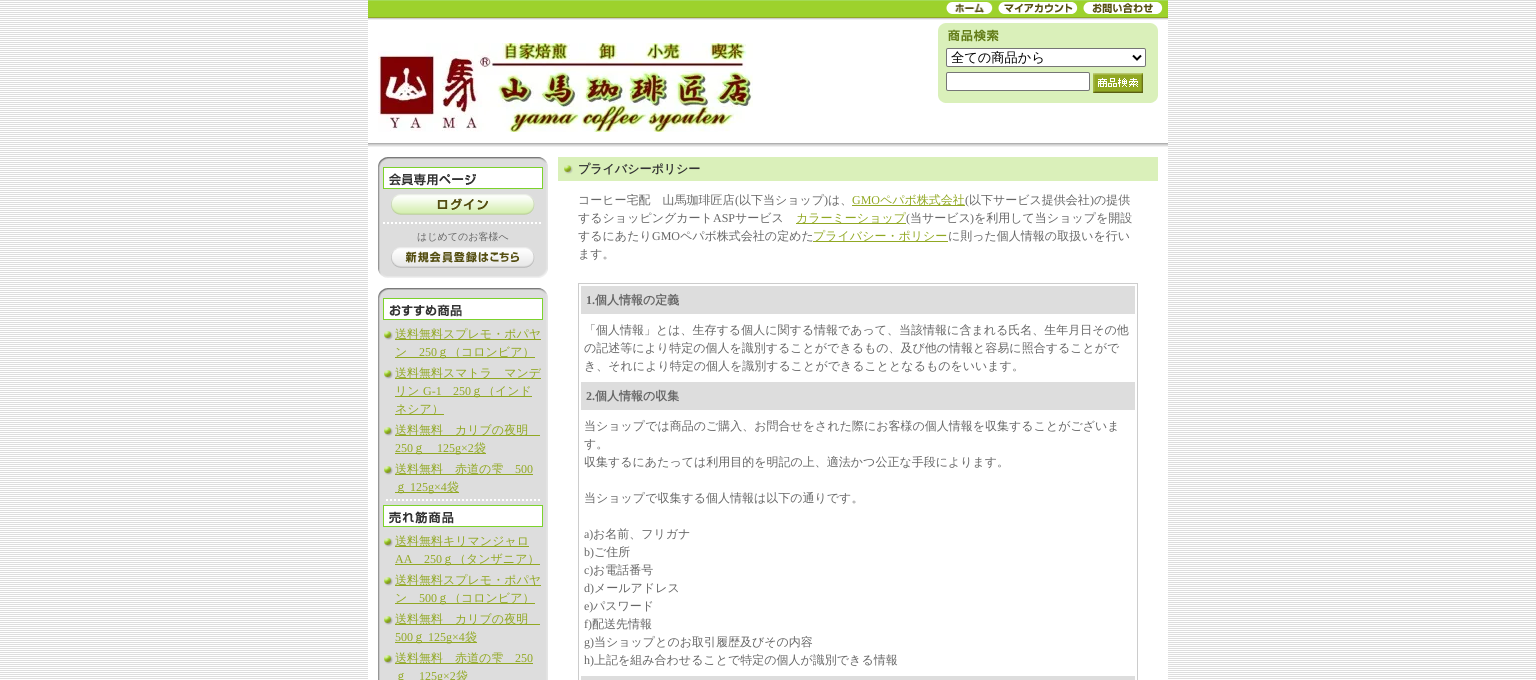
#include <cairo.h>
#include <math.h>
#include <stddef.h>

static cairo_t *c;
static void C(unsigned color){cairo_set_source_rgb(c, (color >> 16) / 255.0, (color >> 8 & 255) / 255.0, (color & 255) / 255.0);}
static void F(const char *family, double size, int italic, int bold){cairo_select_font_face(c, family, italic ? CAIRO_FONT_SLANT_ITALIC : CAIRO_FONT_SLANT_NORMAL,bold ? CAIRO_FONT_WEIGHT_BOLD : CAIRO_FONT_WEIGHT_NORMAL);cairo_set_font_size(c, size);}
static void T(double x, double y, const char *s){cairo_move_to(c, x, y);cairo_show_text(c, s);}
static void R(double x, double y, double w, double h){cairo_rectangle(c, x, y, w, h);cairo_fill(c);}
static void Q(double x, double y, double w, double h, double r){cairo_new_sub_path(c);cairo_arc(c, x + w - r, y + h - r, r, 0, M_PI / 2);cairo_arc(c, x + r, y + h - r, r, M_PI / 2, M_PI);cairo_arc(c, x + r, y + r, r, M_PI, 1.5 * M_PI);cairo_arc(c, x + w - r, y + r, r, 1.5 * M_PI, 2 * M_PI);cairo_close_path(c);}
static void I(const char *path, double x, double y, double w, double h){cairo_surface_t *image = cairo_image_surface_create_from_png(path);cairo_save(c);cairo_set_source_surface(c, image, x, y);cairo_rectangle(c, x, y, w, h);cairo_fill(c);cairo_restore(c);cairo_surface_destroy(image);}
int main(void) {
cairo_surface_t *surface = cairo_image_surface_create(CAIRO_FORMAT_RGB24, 1536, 680);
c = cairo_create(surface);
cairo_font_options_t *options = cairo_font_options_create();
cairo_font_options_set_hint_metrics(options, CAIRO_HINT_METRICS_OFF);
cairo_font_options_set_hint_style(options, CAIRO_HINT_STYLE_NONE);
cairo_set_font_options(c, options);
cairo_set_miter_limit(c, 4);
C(0xdddddd);
cairo_paint(c);
I("1.png",0,1,1536,679);
C(0xffffff);
R(368,20,800,659);
I("2.png",368,0,800,20);
I("3.png",946,2,47,12);
I("4.png",998,2,80,12);
I("5.png",1083,2,80,12);
I("6.png",368,143,800,4);
I("7.png",378,43,375,89);
C(0xdaf0ba);
R(938,23,220,80);
I("8.png",938,96,220,7);
I("9.png",938,23,220,19);
C(0xffffff);
Q(946.5,48.5,199,18,1.5);
cairo_fill_preserve(c);
C(0x767676);
cairo_set_line_width(c,1);
cairo_stroke(c);
cairo_new_path(c);
cairo_move_to(c,1133,55.5);
cairo_line_to(c,1137,59.5);
cairo_line_to(c,1141,55.5);
C(0x000000);
cairo_set_line_width(c,2);
cairo_stroke(c);
F("WenQuanYi Zen Hei Medium",13.25,0,0);
T(951,62,"全ての商品から");
C(0xffffff);
Q(946.5,72.5,143,18,1.5);
cairo_fill_preserve(c);
C(0x767676);
cairo_set_line_width(c,1);
cairo_stroke(c);
I("10.png",1093,73,50,20);
I("11.png",378,159,170,117);
I("12.png",378,157,170,10);
C(0xffffff);
cairo_rectangle(c,383.5,167.5,159,21);
cairo_fill_preserve(c);
C(0x7cd22c);
cairo_stroke(c);
I("13.png",389,173,87,13);
I("14.png",391,194,144,21);
cairo_new_path(c);
cairo_move_to(c,383,223);
cairo_line_to(c,543,223);
C(0xffffff);
cairo_set_line_width(c,2);
cairo_set_dash(c,(double[]){2,2},2,0);
cairo_stroke(c);
F("WenQuanYi Zen Hei Medium",10,0,0);
C(0x666666);
T(417,240,"はじめてのお客様へ");
I("15.png",391,247,144,21);
I("16.png",378,269,170,9);
I("17.png",378,290,170,390);
I("12.png",378,288,170,10);
C(0xffffff);
cairo_rectangle(c,383.5,298.5,159,21);
cairo_fill_preserve(c);
C(0x7cd22c);
cairo_set_line_width(c,1);
cairo_set_dash(c,NULL,0,0);
cairo_stroke(c);
I("18.png",389,304,73,13);
I("19.png",384,331,9,9);
C(0x91a823);
R(395,339,146,1);
F("WenQuanYi Zen Hei Medium",12,0,0);
T(395,338,"送料無料スプレモ・ポパヤ");
T(395,356,"ン");
F("Liberation Serif",12,0,0);
T(419,356,"250");
R(395,357,140,1);
F("WenQuanYi Zen Hei Medium",12,0,0);
T(437,356,"ｇ（コロンビア）");
I("19.png",384,370,9,9);
R(395,378,146,1);
T(395,377,"送料無料スマトラ　マンデ");
R(395,396,137,1);
T(395,395,"リン");
F("Liberation Serif",12,0,0);
T(423,395,"G-1");
T(453,395,"250");
F("WenQuanYi Zen Hei Medium",12,0,0);
T(471,395,"ｇ（インド");
R(395,414,49,1);
T(395,413,"ネシア）");
I("19.png",384,427,9,9);
R(395,435,145,1);
T(395,434,"送料無料　カリブの夜明");
F("Liberation Serif",12,0,0);
T(395,452,"250");
R(395,453,91,1);
F("WenQuanYi Zen Hei Medium",12,0,0);
T(413,452,"ｇ");
F("Liberation Serif",12,0,0);
T(437,452,"125g×2");
F("WenQuanYi Zen Hei Medium",12,0,0);
T(474,452,"袋");
I("19.png",384,466,9,9);
R(395,474,138,1);
T(395,473,"送料無料　赤道の雫");
F("Liberation Serif",12,0,0);
T(515,473,"500");
R(395,492,64,1);
F("WenQuanYi Zen Hei Medium",12,0,0);
T(395,491,"ｇ");
F("Liberation Serif",12,0,0);
T(410,491,"125g×4");
F("WenQuanYi Zen Hei Medium",12,0,0);
T(447,491,"袋");
cairo_new_path(c);
cairo_move_to(c,386,500);
cairo_line_to(c,540,500);
C(0xffffff);
cairo_set_line_width(c,2);
cairo_set_dash(c,(double[]){2,2},2,0);
cairo_stroke(c);
cairo_rectangle(c,383.5,505.5,159,21);
cairo_fill_preserve(c);
C(0x7cd22c);
cairo_set_line_width(c,1);
cairo_set_dash(c,NULL,0,0);
cairo_stroke(c);
I("20.png",389,511,65,13);
I("19.png",384,538,9,9);
C(0x91a823);
R(395,546,134,1);
T(395,545,"送料無料キリマンジャロ");
F("Liberation Serif",12,0,0);
T(395,563,"AA");
T(424,563,"250");
R(395,564,145,1);
F("WenQuanYi Zen Hei Medium",12,0,0);
T(442,563,"ｇ（タンザニア）");
I("19.png",384,577,9,9);
R(395,585,146,1);
T(395,584,"送料無料スプレモ・ポパヤ");
T(395,602,"ン");
F("Liberation Serif",12,0,0);
T(419,602,"500");
R(395,603,140,1);
F("WenQuanYi Zen Hei Medium",12,0,0);
T(437,602,"ｇ（コロンビア）");
I("19.png",384,616,9,9);
R(395,624,145,1);
T(395,623,"送料無料　カリブの夜明");
F("Liberation Serif",12,0,0);
T(395,641,"500");
R(395,642,82,1);
F("WenQuanYi Zen Hei Medium",12,0,0);
T(413,641,"ｇ");
F("Liberation Serif",12,0,0);
T(428,641,"125g×4");
F("WenQuanYi Zen Hei Medium",12,0,0);
T(465,641,"袋");
I("19.png",384,655,9,9);
R(395,663,138,1);
T(395,662,"送料無料　赤道の雫");
F("Liberation Serif",12,0,0);
T(515,662,"250");
F("WenQuanYi Zen Hei Medium",12,0,0);
T(395,680,"ｇ");
F("Liberation Serif",12,0,0);
T(419,680,"125g×2");
F("WenQuanYi Zen Hei Medium",12,0,0);
T(456,680,"袋");
C(0xdaf0ba);
R(558,157,600,24);
I("21.png",564,165,9,9);
F("WenQuanYi Zen Hei",12,0,1);
C(0x333333);
T(578,173,"プライバシーポリシー");
F("WenQuanYi Zen Hei Medium",12,0,0);
C(0x666666);
T(578,204,"コーヒー宅配　山馬珈琲匠店");
F("Liberation Serif",12,0,0);
T(735,204,"(");
F("WenQuanYi Zen Hei Medium",12,0,0);
T(739,204,"以下当ショップ");
F("Liberation Serif",12,0,0);
T(824,204,")");
F("WenQuanYi Zen Hei Medium",12,0,0);
T(828,204,"は、");
F("Liberation Serif",12,0,0);
C(0x91a823);
T(852,204,"GMO");
R(852,205,113,1);
F("WenQuanYi Zen Hei Medium",12,0,0);
T(880,204,"ペパボ株式会社");
F("Liberation Serif",12,0,0);
C(0x666666);
T(965,204,"(");
F("WenQuanYi Zen Hei Medium",12,0,0);
T(969,204,"以下サービス提供会社");
F("Liberation Serif",12,0,0);
T(1090,204,")");
F("WenQuanYi Zen Hei Medium",12,0,0);
T(1094,204,"の提供");
T(578,222,"するショッピングカート");
F("Liberation Serif",12,0,0);
T(713,222,"ASP");
F("WenQuanYi Zen Hei Medium",12,0,0);
T(735,222,"サービス");
C(0x91a823);
R(796,223,110,1);
T(796,222,"カラーミーショップ");
F("Liberation Serif",12,0,0);
C(0x666666);
T(906,222,"(");
F("WenQuanYi Zen Hei Medium",12,0,0);
T(910,222,"当サービス");
F("Liberation Serif",12,0,0);
T(970,222,")");
F("WenQuanYi Zen Hei Medium",12,0,0);
T(974,222,"を利用して当ショップを開設");
T(578,240,"するにあたり");
F("Liberation Serif",12,0,0);
T(652,240,"GMO");
F("WenQuanYi Zen Hei Medium",12,0,0);
T(680,240,"ペパボ株式会社の定めた");
C(0x91a823);
R(813,241,135,1);
T(813,240,"プライバシー・ポリシー");
C(0x666666);
T(948,240,"に則った個人情報の取扱いを行い");
T(578,258,"ます。");
cairo_rectangle(c,578.5,283.5,559,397);
C(0xcccccc);
cairo_stroke(c);
C(0xdddddd);
R(581,286,554,28);
F("Liberation Serif",12,0,1);
C(0x666666);
T(586,304,"1.");
F("WenQuanYi Zen Hei",12,0,1);
T(595,304,"個人情報の定義");
F("WenQuanYi Zen Hei Medium",12,0,0);
T(584,334,"「個人情報」とは、生存する個人に関する情報であって、当該情報に含まれる氏名、生年月日その他");
T(584,352,"の記述等により特定の個人を識別することができるもの、及び他の情報と容易に照合することがで");
T(584,370,"き、それにより特定の個人を識別することができることとなるものをいいます。");
C(0xdddddd);
R(581,382,554,28);
F("Liberation Serif",12,0,1);
C(0x666666);
T(586,400,"2.");
F("WenQuanYi Zen Hei",12,0,1);
T(595,400,"個人情報の収集");
F("WenQuanYi Zen Hei Medium",12,0,0);
T(584,430,"当ショップでは商品のご購入、お問合せをされた際にお客様の個人情報を収集することがございま");
T(584,448,"す。");
T(584,466,"収集するにあたっては利用目的を明記の上、適法かつ公正な手段によります。");
T(584,502,"当ショップで収集する個人情報は以下の通りです。");
F("Liberation Serif",12,0,0);
T(584,538,"a)");
F("WenQuanYi Zen Hei Medium",12,0,0);
T(593,538,"お名前、フリガナ");
F("Liberation Serif",12,0,0);
T(584,556,"b)");
F("WenQuanYi Zen Hei Medium",12,0,0);
T(594,556,"ご住所");
F("Liberation Serif",12,0,0);
T(584,574,"c)");
F("WenQuanYi Zen Hei Medium",12,0,0);
T(593,574,"お電話番号");
F("Liberation Serif",12,0,0);
T(584,592,"d)");
F("WenQuanYi Zen Hei Medium",12,0,0);
T(594,592,"メールアドレス");
F("Liberation Serif",12,0,0);
T(584,610,"e)");
F("WenQuanYi Zen Hei Medium",12,0,0);
T(593,610,"パスワード");
F("Liberation Serif",12,0,0);
T(584,628,"f)");
F("WenQuanYi Zen Hei Medium",12,0,0);
T(592,628,"配送先情報");
F("Liberation Serif",12,0,0);
T(584,646,"g)");
F("WenQuanYi Zen Hei Medium",12,0,0);
T(594,646,"当ショップとのお取引履歴及びその内容");
F("Liberation Serif",12,0,0);
T(584,664,"h)");
F("WenQuanYi Zen Hei Medium",12,0,0);
T(594,664,"上記を組み合わせることで特定の個人が識別できる情報");
C(0xdddddd);
R(581,676,554,4);
cairo_surface_write_to_png(surface, "o.png");
cairo_font_options_destroy(options);
cairo_destroy(c);
cairo_surface_destroy(surface);
return 0;
}
